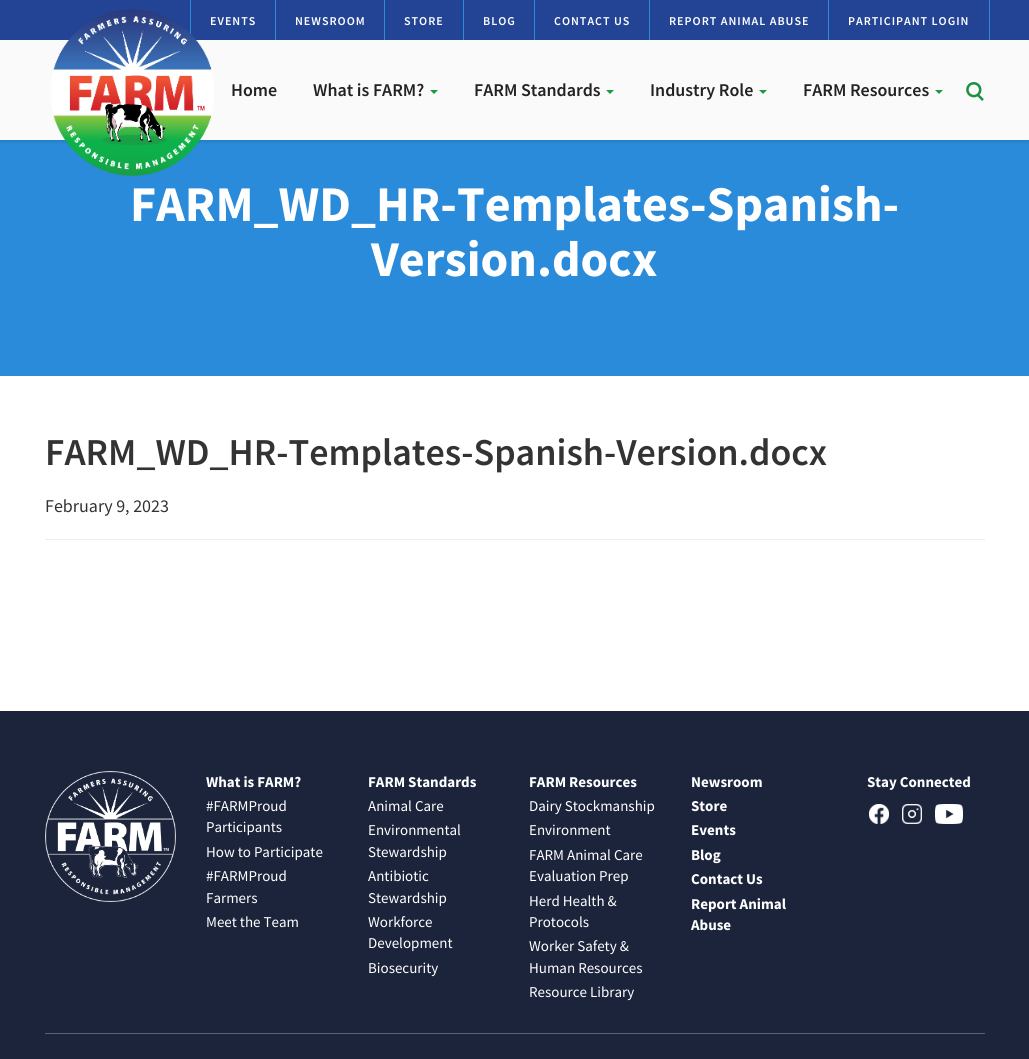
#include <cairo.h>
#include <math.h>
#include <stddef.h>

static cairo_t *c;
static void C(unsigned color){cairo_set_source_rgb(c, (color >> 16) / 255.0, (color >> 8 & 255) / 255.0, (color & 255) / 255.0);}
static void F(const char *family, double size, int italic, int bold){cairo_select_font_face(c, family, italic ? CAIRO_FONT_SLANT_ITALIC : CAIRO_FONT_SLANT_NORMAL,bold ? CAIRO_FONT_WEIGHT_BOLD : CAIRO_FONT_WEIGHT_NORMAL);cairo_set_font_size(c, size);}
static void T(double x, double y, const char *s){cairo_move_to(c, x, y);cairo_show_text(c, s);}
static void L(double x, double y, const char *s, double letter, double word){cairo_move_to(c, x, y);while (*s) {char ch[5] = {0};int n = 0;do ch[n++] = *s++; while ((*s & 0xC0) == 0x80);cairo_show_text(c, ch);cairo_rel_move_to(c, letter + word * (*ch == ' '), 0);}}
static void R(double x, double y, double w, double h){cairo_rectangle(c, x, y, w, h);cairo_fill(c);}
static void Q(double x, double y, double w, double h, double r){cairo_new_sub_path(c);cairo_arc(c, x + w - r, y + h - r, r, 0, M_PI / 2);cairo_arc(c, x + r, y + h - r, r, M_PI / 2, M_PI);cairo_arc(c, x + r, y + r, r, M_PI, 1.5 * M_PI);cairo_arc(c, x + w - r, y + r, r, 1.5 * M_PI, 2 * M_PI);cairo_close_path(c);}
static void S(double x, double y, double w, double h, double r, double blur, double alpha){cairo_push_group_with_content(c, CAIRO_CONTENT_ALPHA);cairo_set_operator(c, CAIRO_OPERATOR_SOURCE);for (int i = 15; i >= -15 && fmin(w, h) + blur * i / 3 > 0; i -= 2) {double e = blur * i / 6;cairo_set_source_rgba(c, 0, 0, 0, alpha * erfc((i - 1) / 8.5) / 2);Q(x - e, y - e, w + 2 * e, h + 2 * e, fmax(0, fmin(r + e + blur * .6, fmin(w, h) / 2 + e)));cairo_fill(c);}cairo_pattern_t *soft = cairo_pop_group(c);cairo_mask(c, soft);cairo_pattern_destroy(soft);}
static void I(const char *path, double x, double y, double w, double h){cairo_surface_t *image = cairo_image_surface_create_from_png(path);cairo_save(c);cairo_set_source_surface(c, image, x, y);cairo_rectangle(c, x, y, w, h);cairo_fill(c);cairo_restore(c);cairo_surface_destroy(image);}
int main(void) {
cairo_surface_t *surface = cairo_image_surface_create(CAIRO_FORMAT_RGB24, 1029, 1059);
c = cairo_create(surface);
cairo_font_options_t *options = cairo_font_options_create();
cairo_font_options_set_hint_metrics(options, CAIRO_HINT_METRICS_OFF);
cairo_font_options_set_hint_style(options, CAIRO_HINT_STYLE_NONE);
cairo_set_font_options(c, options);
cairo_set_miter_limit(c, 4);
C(0xffffff);
cairo_paint(c);
C(0x234495);
R(0,0,1029,40);
C(0x2a8bd9);
R(190,0,1,40);
F("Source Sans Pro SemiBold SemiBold",12,0,0);
C(0xffffff);
L(210,25,"EVENTS",1,0);
C(0x2a8bd9);
R(275,0,1,40);
C(0xffffff);
L(295,25,"NEWSROOM",1,0);
C(0x2a8bd9);
R(384,0,1,40);
C(0xffffff);
L(404,25,"STORE",1,0);
C(0x2a8bd9);
R(463,0,1,40);
C(0xffffff);
L(483,25,"BLOG",1,0);
C(0x2a8bd9);
R(534,0,1,40);
C(0xffffff);
L(554,25,"CONTACT US",1,0);
C(0x2a8bd9);
R(649,0,1,40);
C(0xffffff);
L(669,25,"REPORT ANIMAL ABUSE",1,0);
C(0x2a8bd9);
R(989,0,1,40);
R(828,0,1,40);
C(0xffffff);
L(848,25,"PARTICIPANT LOGIN",1,0);
C(0x298bd9);
R(0,140,1029,236);
C(0x000000);
S(0,42,1029,100,0,1.5,.1);
C(0xfafafa);
R(0,41,1029,99);
I("1.png",51,9,163,167);
F("Source Sans Pro SemiBold SemiBold",18,0,0);
C(0x222222);
T(231,96,"Home");
T(313,96,"What is FARM?");
C(0x1e9940);
cairo_new_path(c);
cairo_move_to(c,430,90);
cairo_line_to(c,438,90);
cairo_line_to(c,434,94);
cairo_close_path(c);
cairo_fill(c);
C(0x222222);
T(474,96,"FARM Standards");
C(0x1e9940);
cairo_new_path(c);
cairo_move_to(c,606,90);
cairo_line_to(c,614,90);
cairo_line_to(c,610,94);
cairo_close_path(c);
cairo_fill(c);
C(0x222222);
T(650,96,"Industry Role");
C(0x1e9940);
cairo_new_path(c);
cairo_move_to(c,759,90);
cairo_line_to(c,767,90);
cairo_line_to(c,763,94);
cairo_close_path(c);
cairo_fill(c);
C(0x222222);
T(803,96,"FARM Resources");
C(0x1e9940);
cairo_new_path(c);
cairo_move_to(c,935,90);
cairo_line_to(c,943,90);
cairo_line_to(c,939,94);
cairo_close_path(c);
cairo_fill(c);
I("2.png",966,82,18,19);
F("Source Sans Pro",50,0,1);
C(0xffffff);
T(130,221,"FARM_WD_HR-Templates-Spanish-");
T(371,276,"Version.docx");
F("Source Sans Pro SemiBold SemiBold",38,0,0);
C(0x333333);
T(45,465,"FARM_WD_HR-Templates-Spanish-Version.docx");
F("Source Sans Pro",18,0,0);
T(45,512,"February 9, 2023");
C(0xeeeeee);
R(45,539,940,1);
C(0x1c243b);
R(0,711,1029,348);
I("3.png",45,771,131,131);
F("Source Sans Pro",15,0,1);
C(0xffffff);
T(206,787,"What is FARM?");
F("Source Sans Pro",15,0,0);
T(206,811,"#FARMProud");
T(206,832,"Participants");
T(206,857,"How to Participate");
T(206,881,"#FARMProud");
T(206,903,"Farmers");
T(206,927,"Meet the Team");
F("Source Sans Pro",15,0,1);
T(368,787,"FARM Standards");
F("Source Sans Pro",15,0,0);
T(368,811,"Animal Care");
T(368,835,"Environmental");
T(368,857,"Stewardship");
T(368,881,"Antibiotic");
T(368,903,"Stewardship");
T(368,927,"Workforce");
T(368,948,"Development");
T(368,973,"Biosecurity");
F("Source Sans Pro",15,0,1);
T(529,787,"FARM Resources");
F("Source Sans Pro",15,0,0);
T(529,811,"Dairy Stockmanship");
T(529,835,"Environment");
T(529,860,"FARM Animal Care");
T(529,881,"Evaluation Prep");
T(529,906,"Herd Health &");
T(529,927,"Protocols");
T(529,951,"Worker Safety &");
T(529,973,"Human Resources");
T(529,997,"Resource Library");
F("Source Sans Pro",15,0,1);
T(691,787,"Newsroom");
T(691,811,"Store");
T(691,835,"Events");
T(691,860,"Blog");
T(691,884,"Contact Us");
T(691,909,"Report Animal");
T(691,930,"Abuse");
T(867,787,"Stay Connected");
I("4.png",869,804,20,20);
I("5.png",902,804,20,20);
I("6.png",935,804,28,20);
C(0x5b6171);
R(45,1033,940,1);
cairo_surface_write_to_png(surface, "o.png");
cairo_font_options_destroy(options);
cairo_destroy(c);
cairo_surface_destroy(surface);
return 0;
}
